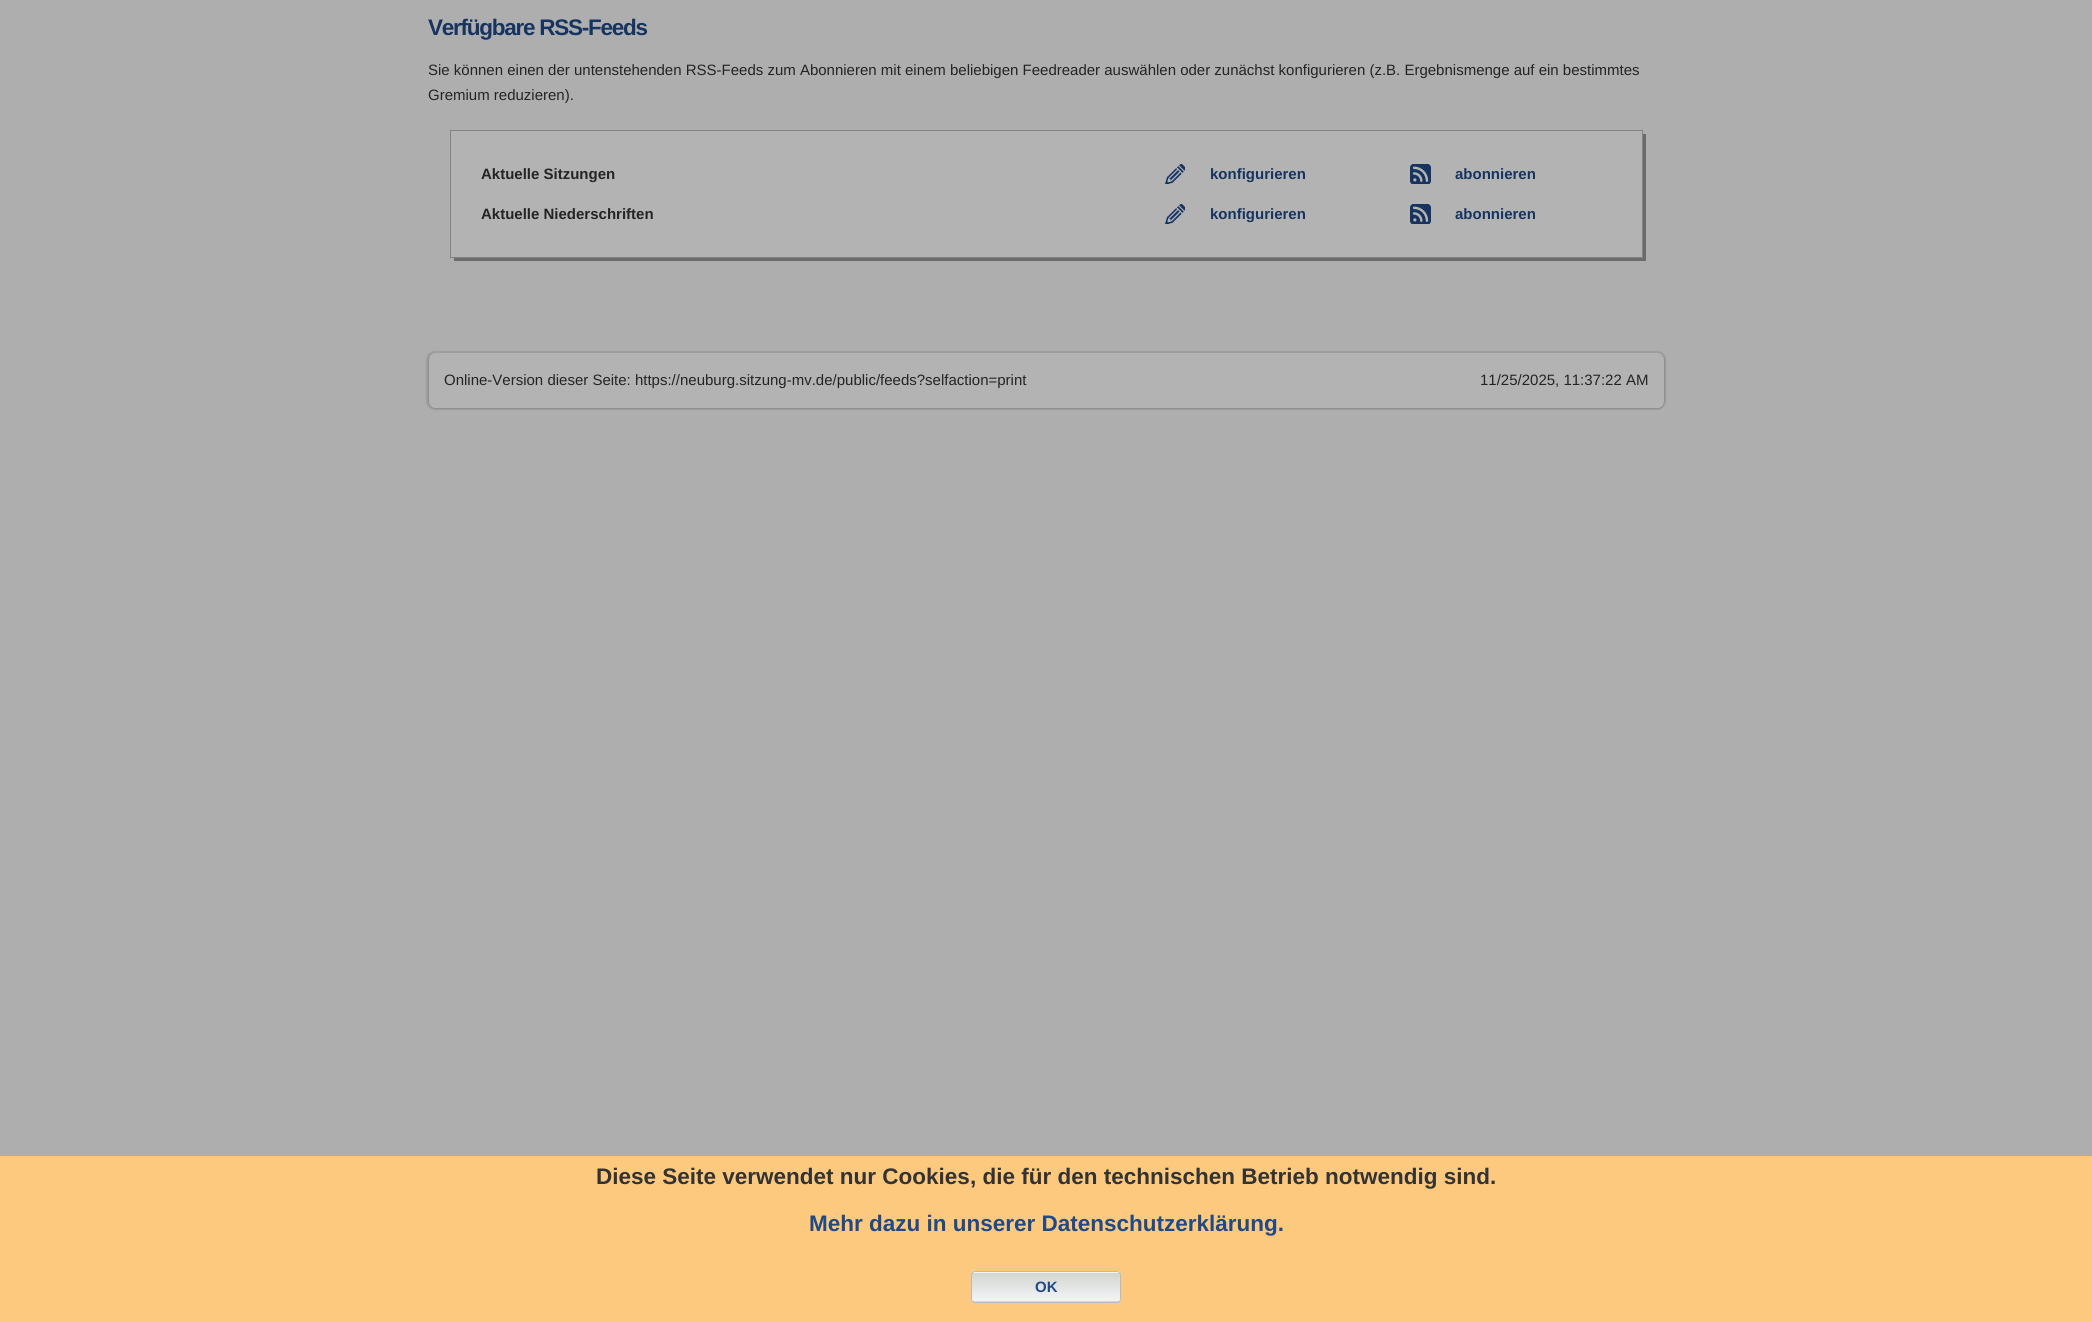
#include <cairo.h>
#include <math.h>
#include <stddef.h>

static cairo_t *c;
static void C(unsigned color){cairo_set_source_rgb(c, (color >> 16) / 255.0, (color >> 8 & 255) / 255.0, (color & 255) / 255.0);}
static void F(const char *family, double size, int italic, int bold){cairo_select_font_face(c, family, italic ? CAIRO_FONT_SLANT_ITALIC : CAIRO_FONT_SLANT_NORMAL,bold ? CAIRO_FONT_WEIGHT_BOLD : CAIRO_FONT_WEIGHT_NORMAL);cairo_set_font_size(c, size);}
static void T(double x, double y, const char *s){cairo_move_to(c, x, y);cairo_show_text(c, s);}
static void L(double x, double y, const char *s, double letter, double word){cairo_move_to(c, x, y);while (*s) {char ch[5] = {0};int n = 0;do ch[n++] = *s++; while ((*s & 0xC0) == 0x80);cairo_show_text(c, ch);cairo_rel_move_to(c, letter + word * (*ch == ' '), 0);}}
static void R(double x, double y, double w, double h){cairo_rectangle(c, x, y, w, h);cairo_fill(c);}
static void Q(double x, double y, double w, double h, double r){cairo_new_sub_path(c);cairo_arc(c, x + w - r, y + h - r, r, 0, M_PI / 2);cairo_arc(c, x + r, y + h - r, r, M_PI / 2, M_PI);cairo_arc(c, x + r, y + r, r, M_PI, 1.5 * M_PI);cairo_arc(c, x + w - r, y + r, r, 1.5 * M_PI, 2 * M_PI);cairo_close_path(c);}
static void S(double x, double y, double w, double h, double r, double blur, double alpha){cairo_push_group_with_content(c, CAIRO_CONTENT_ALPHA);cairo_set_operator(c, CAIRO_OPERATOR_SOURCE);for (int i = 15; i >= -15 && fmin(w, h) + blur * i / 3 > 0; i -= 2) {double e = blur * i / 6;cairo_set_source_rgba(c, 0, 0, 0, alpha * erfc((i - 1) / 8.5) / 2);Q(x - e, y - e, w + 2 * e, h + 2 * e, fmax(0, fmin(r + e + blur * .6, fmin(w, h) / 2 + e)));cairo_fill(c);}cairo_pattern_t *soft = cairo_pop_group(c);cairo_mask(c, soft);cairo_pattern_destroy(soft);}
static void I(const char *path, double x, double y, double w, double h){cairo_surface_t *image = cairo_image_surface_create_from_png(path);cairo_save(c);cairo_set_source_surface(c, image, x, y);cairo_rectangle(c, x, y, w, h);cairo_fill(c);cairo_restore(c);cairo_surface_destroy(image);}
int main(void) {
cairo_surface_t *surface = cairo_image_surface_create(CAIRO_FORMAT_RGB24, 2092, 1322);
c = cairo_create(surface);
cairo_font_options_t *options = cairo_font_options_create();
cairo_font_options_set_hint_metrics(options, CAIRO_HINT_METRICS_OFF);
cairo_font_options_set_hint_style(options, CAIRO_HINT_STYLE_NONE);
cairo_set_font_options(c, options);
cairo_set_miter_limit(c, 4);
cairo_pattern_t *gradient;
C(0xaeaeaf);
cairo_paint(c);
F("Liberation Sans",22.5,0,1);
C(0x16345f);
L(428,35,"Verfügbare RSS-Feeds",-1.25,0);
F("Liberation Sans",15,0,0);
C(0x242424);
T(428,75,"Sie können einen der untenstehenden RSS-Feeds zum Abonnieren mit einem beliebigen Feedreader auswählen oder zunächst konfigurieren (z.B. Ergebnismenge auf ein bestimmtes");
T(428,100,"Gremium reduzieren).");
C(0x6b6b6b);
cairo_new_path(c);
cairo_move_to(c,454,258);
cairo_line_to(c,454,261);
cairo_line_to(c,1646,261);
cairo_line_to(c,1646,134);
cairo_line_to(c,1642,134);
cairo_line_to(c,1642,258);
cairo_close_path(c);
cairo_fill(c);
C(0xb3b3b3);
cairo_rectangle(c,450.5,130.5,1192,127);
cairo_fill_preserve(c);
C(0x838383);
cairo_set_line_width(c,1);
cairo_stroke(c);
F("Liberation Sans",15,0,1);
C(0x242424);
T(481,179,"Aktuelle Sitzungen");
I("1.png",1165,164,20,20);
C(0x16345f);
T(1210,179,"konfigurieren");
I("2.png",1410,164,21,20);
T(1455,179,"abonnieren");
C(0x242424);
T(481,219,"Aktuelle Niederschriften");
I("1.png",1165,204,20,20);
C(0x16345f);
T(1210,219,"konfigurieren");
I("2.png",1410,204,21,20);
T(1455,219,"abonnieren");
C(0x000000);
S(426,351,1240,59,9,.5,.1);
C(0xb3b3b3);
Q(428,353,1237,56,8);
cairo_fill(c);
C(0x8f8f8f);
cairo_set_fill_rule(c,CAIRO_FILL_RULE_EVEN_ODD);
cairo_new_path(c);
cairo_move_to(c,435,352);
cairo_line_to(c,1658,352);
cairo_curve_to(c,1662,352,1665,356,1665,360);
cairo_line_to(c,1665,401);
cairo_curve_to(c,1665,405,1662,409,1658,409);
cairo_line_to(c,435,409);
cairo_curve_to(c,431,409,428,405,428,401);
cairo_line_to(c,428,360);
cairo_curve_to(c,428,356,431,352,435,352);
cairo_close_path(c);
cairo_move_to(c,435,352);
cairo_line_to(c,1658,352);
cairo_curve_to(c,1661,352,1664,356,1664,360);
cairo_line_to(c,1664,401);
cairo_curve_to(c,1664,405,1661,408,1658,408);
cairo_line_to(c,435,408);
cairo_curve_to(c,432,408,429,405,429,401);
cairo_line_to(c,429,360);
cairo_curve_to(c,429,356,432,352,435,352);
cairo_close_path(c);
cairo_fill(c);
F("Liberation Sans",15,0,0);
C(0x242424);
T(444,385,"Online-Version dieser Seite: https://neuburg.sitzung-mv.de/public/feeds?selfaction=print");
T(1480,385,"11/25/2025, 11:37:22 AM");
C(0xfcc97e);
R(0,1156,2092,166);
F("Liberation Sans",22.5,0,1);
C(0x333333);
T(596,1184,"Diese Seite verwendet nur Cookies, die für den technischen Betrieb notwendig sind.");
C(0x204a87);
T(809,1231,"Mehr dazu in unserer Datenschutzerklärung.");
cairo_save(c);
cairo_set_fill_rule(c,CAIRO_FILL_RULE_WINDING);
Q(971,1271,150,32,4);
cairo_clip(c);
gradient = cairo_pattern_create_linear(973,1244,973,1273);
cairo_pattern_add_color_stop_rgba(gradient,0,0.827,0.843,0.812,1);
cairo_pattern_add_color_stop_rgba(gradient,1,0.949,0.953,0.973,1);
cairo_set_source(c,gradient);
cairo_pattern_destroy(gradient);
R(971,1271,150,2);
gradient = cairo_pattern_create_linear(973,1273,973,1301);
cairo_pattern_add_color_stop_rgba(gradient,0,0.827,0.843,0.812,1);
cairo_pattern_add_color_stop_rgba(gradient,1,0.949,0.953,0.973,1);
cairo_set_source(c,gradient);
cairo_pattern_destroy(gradient);
R(971,1273,150,28);
gradient = cairo_pattern_create_linear(973,1301,973,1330);
cairo_pattern_add_color_stop_rgba(gradient,0,0.827,0.843,0.812,1);
cairo_pattern_add_color_stop_rgba(gradient,1,0.949,0.953,0.973,1);
cairo_set_source(c,gradient);
cairo_pattern_destroy(gradient);
R(971,1301,150,2);
cairo_restore(c);
Q(971.5,1271.5,149,31,3.5);
C(0xbbbbbb);
cairo_stroke(c);
F("Liberation Sans",15,0,1);
C(0x204a87);
T(1035,1292,"OK");
cairo_surface_write_to_png(surface, "o.png");
cairo_font_options_destroy(options);
cairo_destroy(c);
cairo_surface_destroy(surface);
return 0;
}
